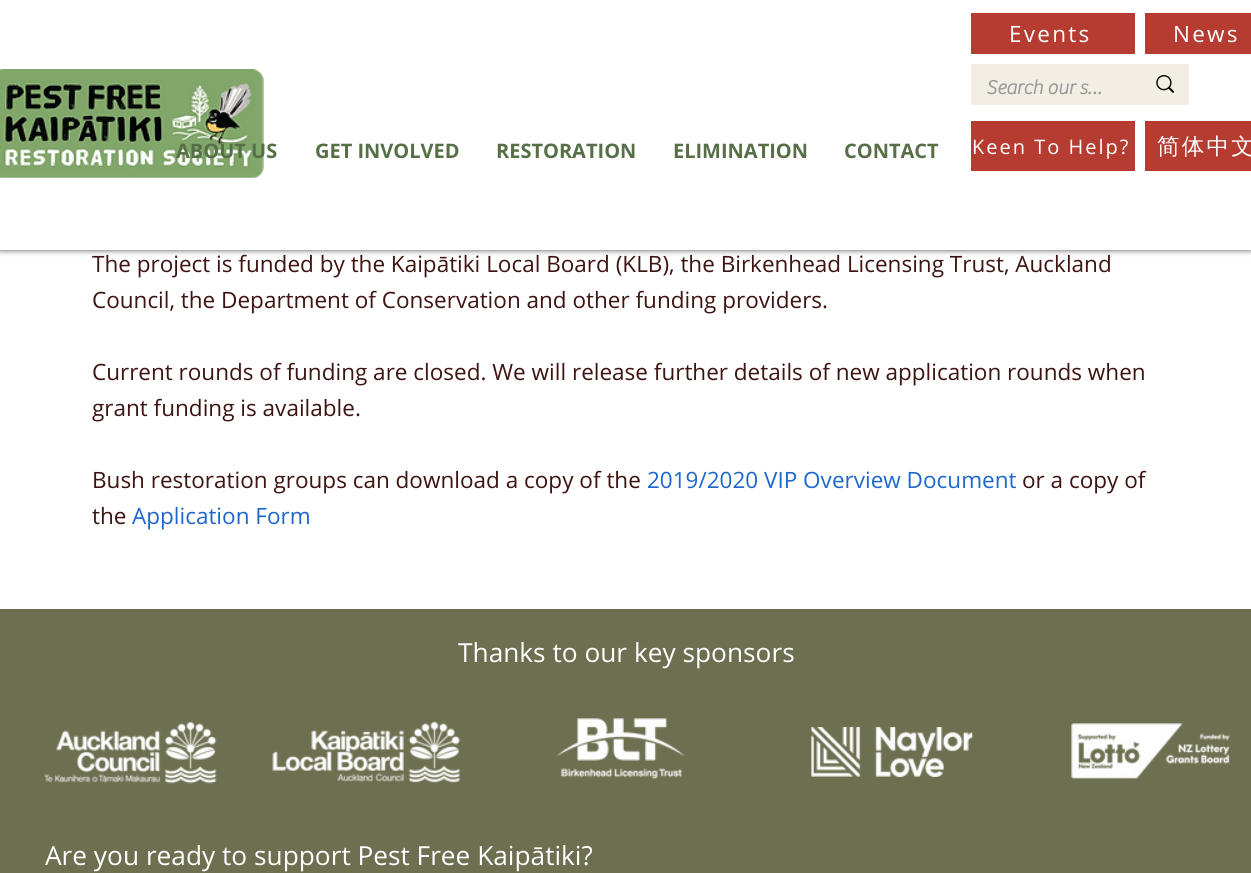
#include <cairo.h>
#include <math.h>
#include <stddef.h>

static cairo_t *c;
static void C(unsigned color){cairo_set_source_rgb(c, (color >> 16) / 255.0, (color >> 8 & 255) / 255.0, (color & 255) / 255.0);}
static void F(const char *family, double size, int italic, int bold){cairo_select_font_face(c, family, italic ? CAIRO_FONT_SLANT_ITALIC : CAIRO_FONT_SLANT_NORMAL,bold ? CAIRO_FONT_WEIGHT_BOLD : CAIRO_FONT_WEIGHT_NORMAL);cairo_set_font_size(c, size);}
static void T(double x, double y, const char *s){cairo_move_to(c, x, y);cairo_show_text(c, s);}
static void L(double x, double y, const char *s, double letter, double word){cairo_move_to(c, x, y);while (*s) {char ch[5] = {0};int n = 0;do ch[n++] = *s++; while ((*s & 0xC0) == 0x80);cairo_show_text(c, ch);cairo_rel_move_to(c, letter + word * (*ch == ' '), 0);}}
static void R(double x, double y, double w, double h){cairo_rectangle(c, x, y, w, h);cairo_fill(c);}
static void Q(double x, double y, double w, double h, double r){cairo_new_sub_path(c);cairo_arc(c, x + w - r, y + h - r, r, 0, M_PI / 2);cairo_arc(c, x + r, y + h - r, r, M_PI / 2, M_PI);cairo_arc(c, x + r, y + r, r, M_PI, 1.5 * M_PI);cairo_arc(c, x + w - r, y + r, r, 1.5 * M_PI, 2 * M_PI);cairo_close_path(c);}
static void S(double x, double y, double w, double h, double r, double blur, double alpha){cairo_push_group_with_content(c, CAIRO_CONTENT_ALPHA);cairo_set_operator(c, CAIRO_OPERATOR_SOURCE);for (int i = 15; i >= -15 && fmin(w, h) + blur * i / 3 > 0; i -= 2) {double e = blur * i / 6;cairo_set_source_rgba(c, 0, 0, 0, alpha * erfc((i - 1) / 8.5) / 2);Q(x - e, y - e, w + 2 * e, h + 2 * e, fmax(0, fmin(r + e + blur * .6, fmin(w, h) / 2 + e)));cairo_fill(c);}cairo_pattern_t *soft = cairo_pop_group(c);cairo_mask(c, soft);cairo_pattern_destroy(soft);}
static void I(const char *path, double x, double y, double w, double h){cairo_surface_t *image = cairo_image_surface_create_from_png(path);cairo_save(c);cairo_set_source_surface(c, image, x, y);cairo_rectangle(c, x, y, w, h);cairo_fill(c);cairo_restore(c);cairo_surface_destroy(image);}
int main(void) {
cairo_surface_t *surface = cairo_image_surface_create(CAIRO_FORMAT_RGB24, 1251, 873);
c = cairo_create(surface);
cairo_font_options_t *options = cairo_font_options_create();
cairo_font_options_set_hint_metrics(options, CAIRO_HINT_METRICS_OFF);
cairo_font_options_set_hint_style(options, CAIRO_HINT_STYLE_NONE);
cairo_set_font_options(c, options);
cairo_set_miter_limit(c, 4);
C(0xffffff);
cairo_paint(c);
C(0x000000);
S(0,0,1251,250,0,3,.7);
C(0xffffff);
R(0,0,1251,250);
I("1.png",0,69,264,109);
C(0xb63c32);
R(971,13,164,41);
F("Open Sans",22.5,0,0);
C(0xffffff);
L(1009,42,"Events",2.25,0);
C(0xb63c32);
R(1145,13,106,41);
C(0xffffff);
L(1173,42,"News",2.25,0);
C(0xf2eee4);
R(971,64,218,41);
F("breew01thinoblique",20,0,1);
C(0x999999);
T(986,94,"Search our s…");
I("2.png",1156,75,18,18);
F("Open Sans",20,0,1);
C(0x576f47);
T(176,158,"ABOUT US");
T(315,158,"GET INVOLVED");
T(496,158,"RESTORATION");
T(673,158,"ELIMINATION");
T(844,158,"CONTACT");
C(0xb63c32);
R(971,121,164,50);
F("Open Sans",20,0,0);
C(0xffffff);
L(972,154,"Keen To Help?",2,0);
C(0xb63c32);
R(1145,121,106,50);
F("WenQuanYi Zen Hei Medium",22.5,0,0);
C(0xffffff);
L(1157,154,"简体中文",2.25,0);
F("Open Sans",22.5,0,0);
C(0x3d1411);
T(92,272,"The project is funded by the Kaipātiki Local Board (KLB), the Birkenhead Licensing Trust, Auckland");
T(92,308,"Council, the Department of Conservation and other funding providers.");
T(92,380,"Current rounds of funding are closed. We will release further details of new application rounds when");
T(92,416,"grant funding is available.");
T(92,488,"Bush restoration groups can download a copy of the");
C(0x1d67cd);
T(647,488,"2019/2020 VIP Overview Document");
C(0x3d1411);
T(1022,488,"or a copy of");
T(92,524,"the");
C(0x1d67cd);
T(132,524,"Application Form");
C(0x6c6f50);
R(0,609,1251,264);
F("Open Sans",26.25,0,0);
C(0xffffff);
T(458,662,"Thanks to our key sponsors");
I("3.png",43,721,174,63);
I("4.png",272,721,189,62);
I("5.png",556,718,129,62);
I("6.png",811,727,162,50);
I("7.png",1071,723,160,56);
T(45,865,"Are you ready to support Pest Free Kaipātiki?");
cairo_surface_write_to_png(surface, "o.png");
cairo_font_options_destroy(options);
cairo_destroy(c);
cairo_surface_destroy(surface);
return 0;
}
